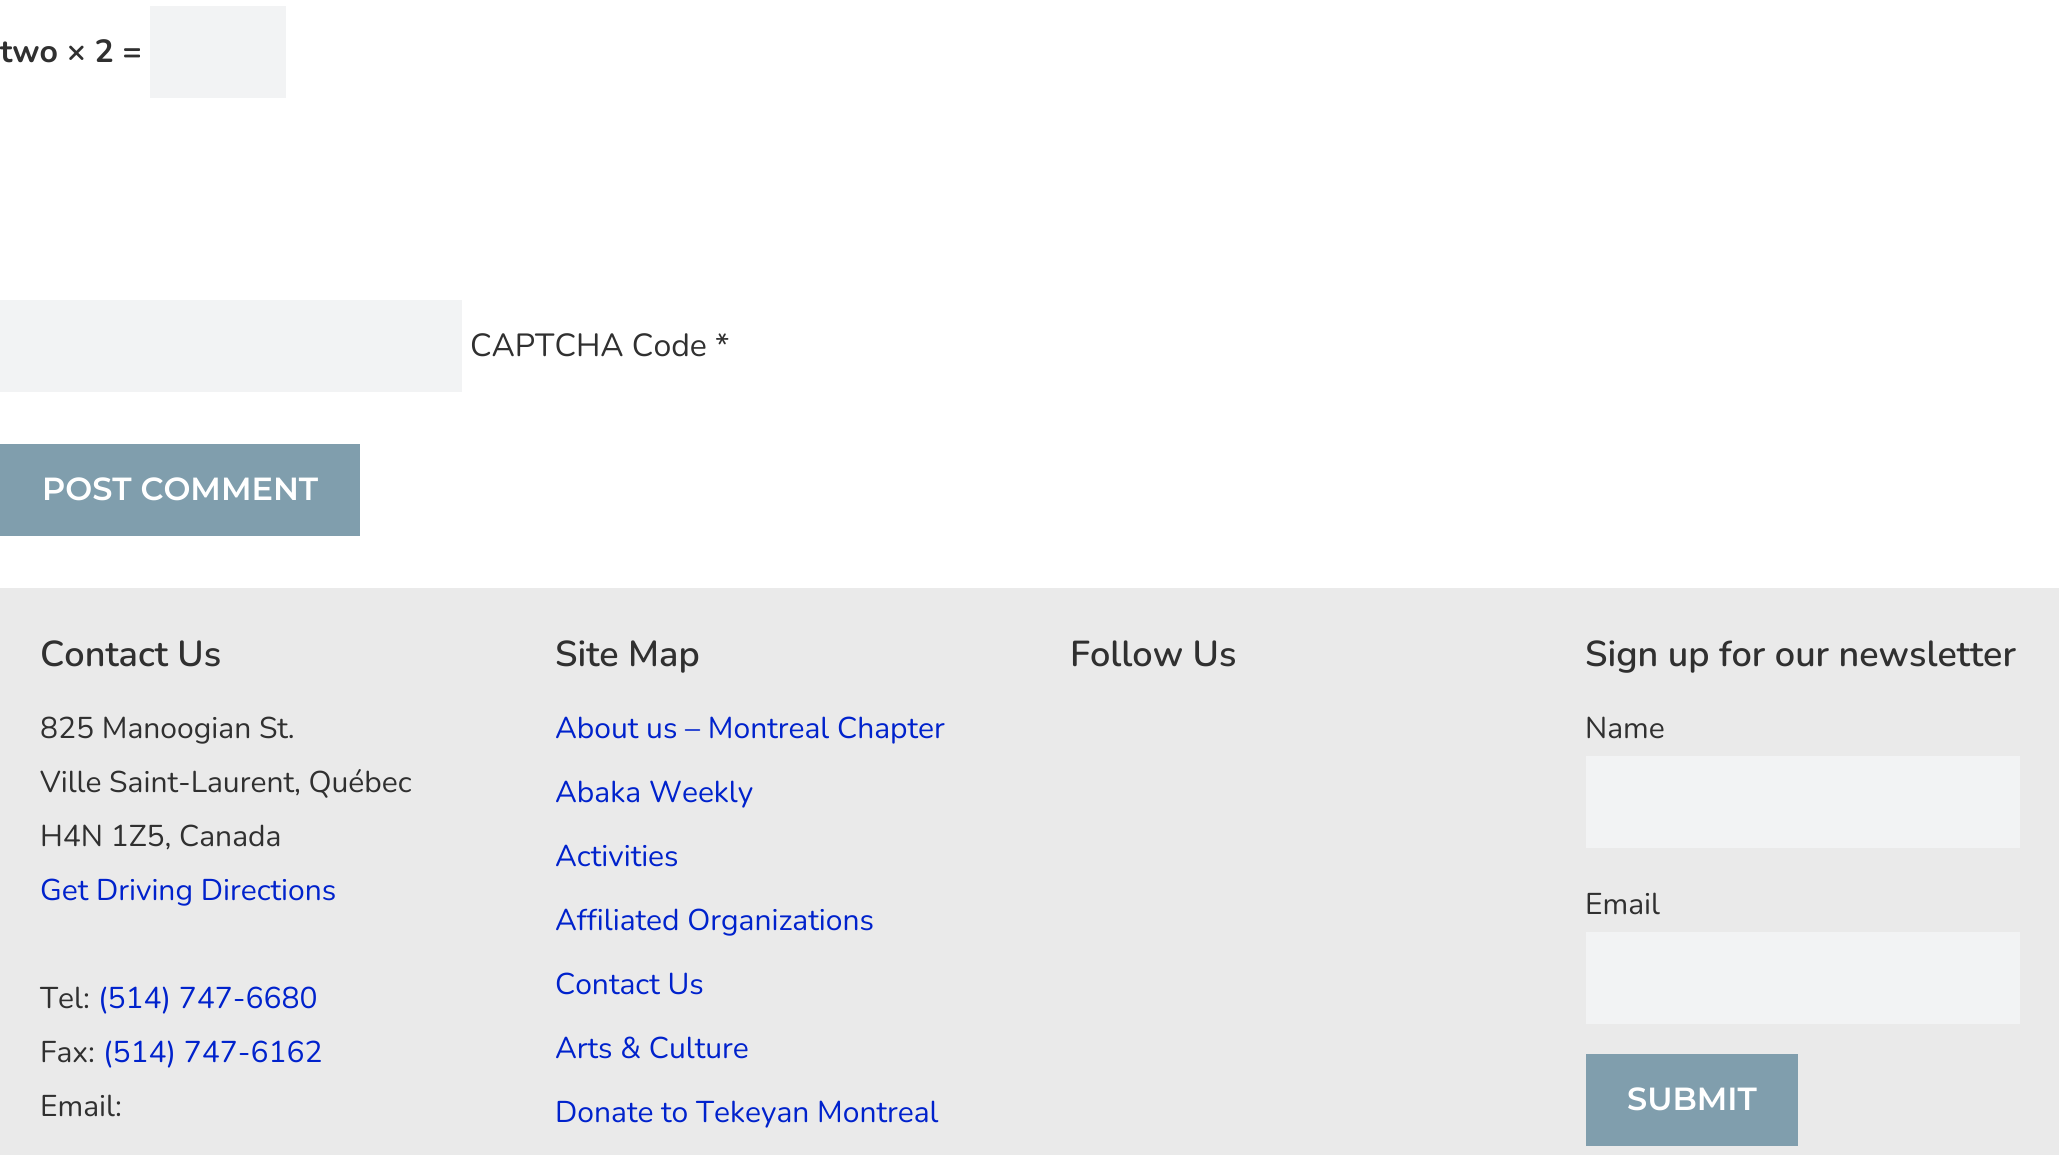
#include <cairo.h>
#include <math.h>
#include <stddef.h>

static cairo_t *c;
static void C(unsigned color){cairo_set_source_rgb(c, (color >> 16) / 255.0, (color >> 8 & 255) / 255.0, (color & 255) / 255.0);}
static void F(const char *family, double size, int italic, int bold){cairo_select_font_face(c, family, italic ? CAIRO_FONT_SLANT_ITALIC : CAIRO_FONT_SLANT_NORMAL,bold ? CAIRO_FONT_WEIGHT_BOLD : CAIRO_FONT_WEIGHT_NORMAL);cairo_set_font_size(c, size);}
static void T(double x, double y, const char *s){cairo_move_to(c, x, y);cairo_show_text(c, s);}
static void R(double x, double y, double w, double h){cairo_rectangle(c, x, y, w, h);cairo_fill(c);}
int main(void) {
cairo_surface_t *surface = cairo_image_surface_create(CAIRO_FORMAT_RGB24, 2059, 1155);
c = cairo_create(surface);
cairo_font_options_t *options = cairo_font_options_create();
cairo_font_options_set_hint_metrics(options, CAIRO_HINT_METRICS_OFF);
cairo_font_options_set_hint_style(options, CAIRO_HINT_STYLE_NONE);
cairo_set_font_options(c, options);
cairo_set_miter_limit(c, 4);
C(0xffffff);
cairo_paint(c);
F("Nunito",32,0,1);
C(0x303030);
T(0,62,"two × 2 =");
C(0xf2f3f4);
R(150,6,136,92);
R(0,300,462,92);
F("Nunito",32,0,0);
C(0x303030);
T(470,356,"CAPTCHA Code *");
C(0x809ead);
R(0,444,360,92);
F("Montserrat SemiBold",32,0,0);
C(0xffffff);
T(42,500,"POST COMMENT");
C(0xeaeaea);
R(0,588,2059,567);
F("Nunito SemiBold",36,0,0);
C(0x303030);
T(40,666,"Contact Us");
F("Nunito",30,0,0);
T(40,738,"825 Manoogian St.");
T(40,792,"Ville Saint-Laurent, Québec");
T(40,846,"H4N 1Z5, Canada");
C(0x0022cc);
T(40,900,"Get Driving Directions");
C(0x303030);
T(40,1008,"Tel:");
C(0x0022cc);
T(98,1008,"(514) 747-6680");
C(0x303030);
T(40,1062,"Fax:");
C(0x0022cc);
T(103,1062,"(514) 747-6162");
C(0x303030);
T(40,1116,"Email:");
F("Nunito SemiBold",36,0,0);
T(555,666,"Site Map");
F("Nunito",30,0,0);
C(0x0022cc);
T(555,738,"About us – Montreal Chapter");
T(555,802,"Abaka Weekly");
T(555,866,"Activities");
T(555,930,"Affiliated Organizations");
T(555,994,"Contact Us");
T(555,1058,"Arts & Culture");
T(555,1122,"Donate to Tekeyan Montreal");
F("Nunito SemiBold",36,0,0);
C(0x303030);
T(1070,666,"Follow Us");
T(1585,666,"Sign up for our newsletter");
F("Nunito",30,0,0);
T(1585,738,"Name");
C(0xf2f3f4);
R(1586,756,434,92);
C(0x303030);
T(1585,914,"Email");
C(0xf2f3f4);
R(1586,932,434,92);
C(0x809ead);
R(1586,1054,212,92);
F("Montserrat SemiBold",32,0,0);
C(0xffffff);
T(1627,1110,"SUBMIT");
cairo_surface_write_to_png(surface, "o.png");
cairo_font_options_destroy(options);
cairo_destroy(c);
cairo_surface_destroy(surface);
return 0;
}
